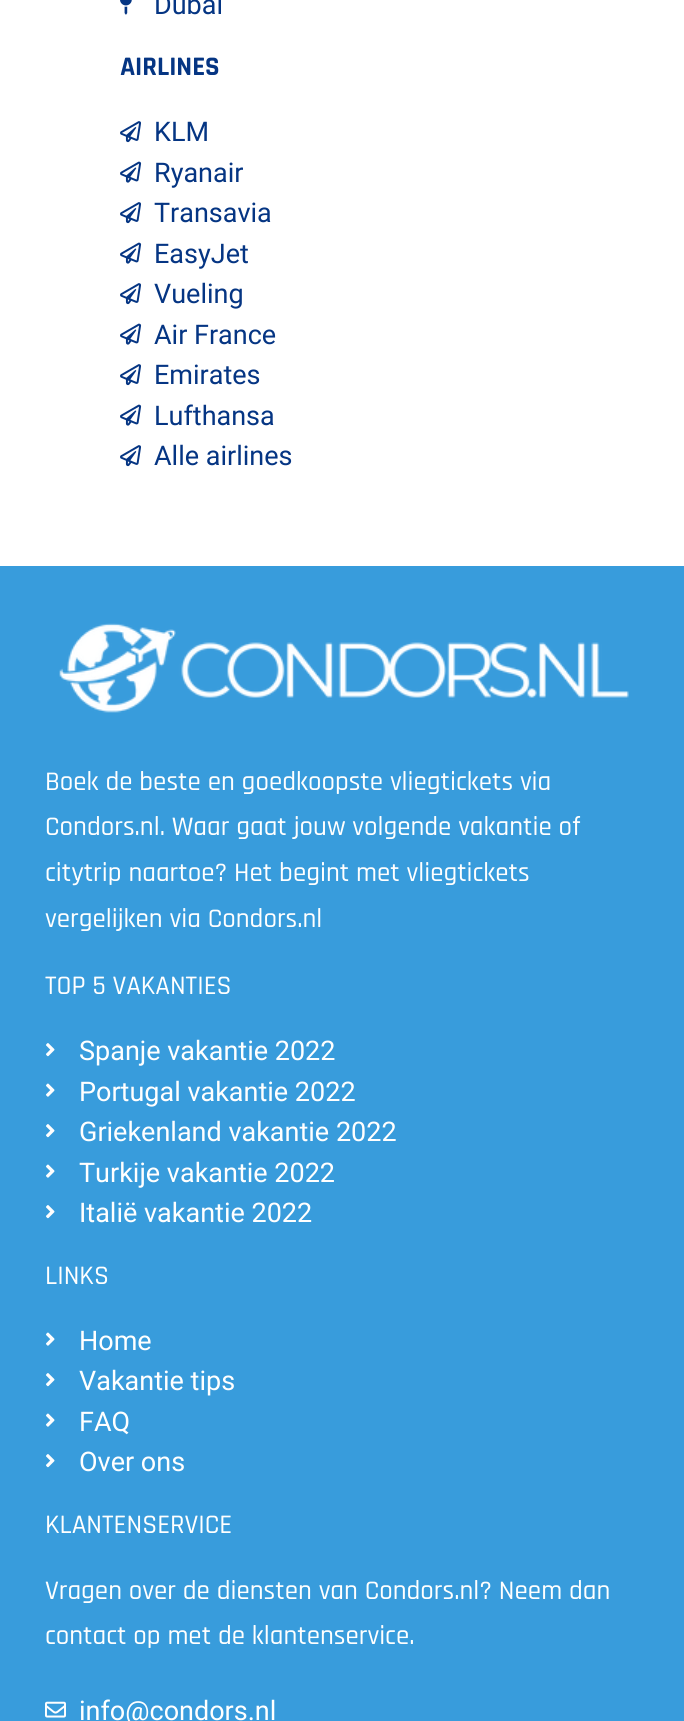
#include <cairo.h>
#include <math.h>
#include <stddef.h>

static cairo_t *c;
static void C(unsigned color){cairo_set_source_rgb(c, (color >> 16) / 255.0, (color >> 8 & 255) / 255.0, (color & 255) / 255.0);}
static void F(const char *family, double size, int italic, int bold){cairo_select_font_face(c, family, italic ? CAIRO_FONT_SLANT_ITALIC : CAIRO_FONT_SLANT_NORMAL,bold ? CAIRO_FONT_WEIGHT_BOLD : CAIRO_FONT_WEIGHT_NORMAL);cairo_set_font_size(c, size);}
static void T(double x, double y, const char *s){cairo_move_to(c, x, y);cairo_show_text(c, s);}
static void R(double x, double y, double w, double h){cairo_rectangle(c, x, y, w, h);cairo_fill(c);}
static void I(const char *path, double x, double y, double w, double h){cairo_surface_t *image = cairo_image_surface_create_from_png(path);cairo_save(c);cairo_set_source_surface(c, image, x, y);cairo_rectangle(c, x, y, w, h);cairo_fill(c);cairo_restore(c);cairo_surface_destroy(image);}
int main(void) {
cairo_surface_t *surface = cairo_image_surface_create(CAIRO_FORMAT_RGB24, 684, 1721);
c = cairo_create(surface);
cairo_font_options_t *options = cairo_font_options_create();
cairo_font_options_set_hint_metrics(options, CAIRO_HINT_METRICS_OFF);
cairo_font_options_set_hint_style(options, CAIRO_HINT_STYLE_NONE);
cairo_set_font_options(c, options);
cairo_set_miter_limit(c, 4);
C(0xffffff);
cairo_paint(c);
I("1.png",120,0,12,15);
F("Roboto",27,0,0);
C(0x053583);
T(154,14,"Dubai");
F("Rajdhani",27,0,1);
T(120,75,"AIRLINES");
I("2.png",120,121,21,22);
F("Roboto",27,0,0);
T(154,141,"KLM");
I("3.png",120,161,22,22);
T(154,182,"Ryanair");
I("2.png",120,202,21,22);
T(154,222,"Transavia");
I("3.png",120,242,22,22);
T(154,263,"EasyJet");
I("2.png",120,283,21,22);
T(154,303,"Vueling");
I("3.png",120,323,22,22);
T(154,344,"Air France");
I("2.png",120,364,21,22);
T(154,384,"Emirates");
I("3.png",120,404,22,22);
T(154,425,"Lufthansa");
I("2.png",120,445,21,22);
T(154,465,"Alle airlines");
C(0x389cdc);
R(0,566,684,1155);
I("4.png",59,623,570,90);
F("Rajdhani Medium",27,0,0);
C(0xffffff);
T(45,790,"Boek de beste en goedkoopste vliegtickets via");
T(45,835,"Condors.nl. Waar gaat jouw volgende vakantie of");
T(45,881,"citytrip naartoe? Het begint met vliegtickets");
T(45,927,"vergelijken via Condors.nl");
T(45,994,"TOP 5 VAKANTIES");
I("5.png",46,1043,9,14);
F("Roboto",27,0,0);
T(79,1060,"Spanje vakantie 2022");
I("6.png",46,1083,9,14);
T(79,1101,"Portugal vakantie 2022");
I("5.png",46,1124,9,14);
T(79,1141,"Griekenland vakantie 2022");
I("6.png",46,1164,9,14);
T(79,1182,"Turkije vakantie 2022");
I("5.png",46,1205,9,14);
T(79,1222,"Italië vakantie 2022");
F("Rajdhani Medium",27,0,0);
T(45,1284,"LINKS");
I("6.png",46,1332,9,14);
F("Roboto",27,0,0);
T(79,1350,"Home");
I("5.png",46,1373,9,14);
T(79,1390,"Vakantie tips");
I("6.png",46,1413,9,14);
T(79,1431,"FAQ");
I("5.png",46,1454,9,14);
T(79,1471,"Over ons");
F("Rajdhani Medium",27,0,0);
T(45,1533,"KLANTENSERVICE");
T(45,1599,"Vragen over de diensten van Condors.nl? Neem dan");
T(45,1644,"contact op met de klantenservice.");
I("7.png",45,1701,21,17);
F("Roboto",27,0,0);
T(79,1720,"info@condors.nl");
cairo_surface_write_to_png(surface, "o.png");
cairo_font_options_destroy(options);
cairo_destroy(c);
cairo_surface_destroy(surface);
return 0;
}
